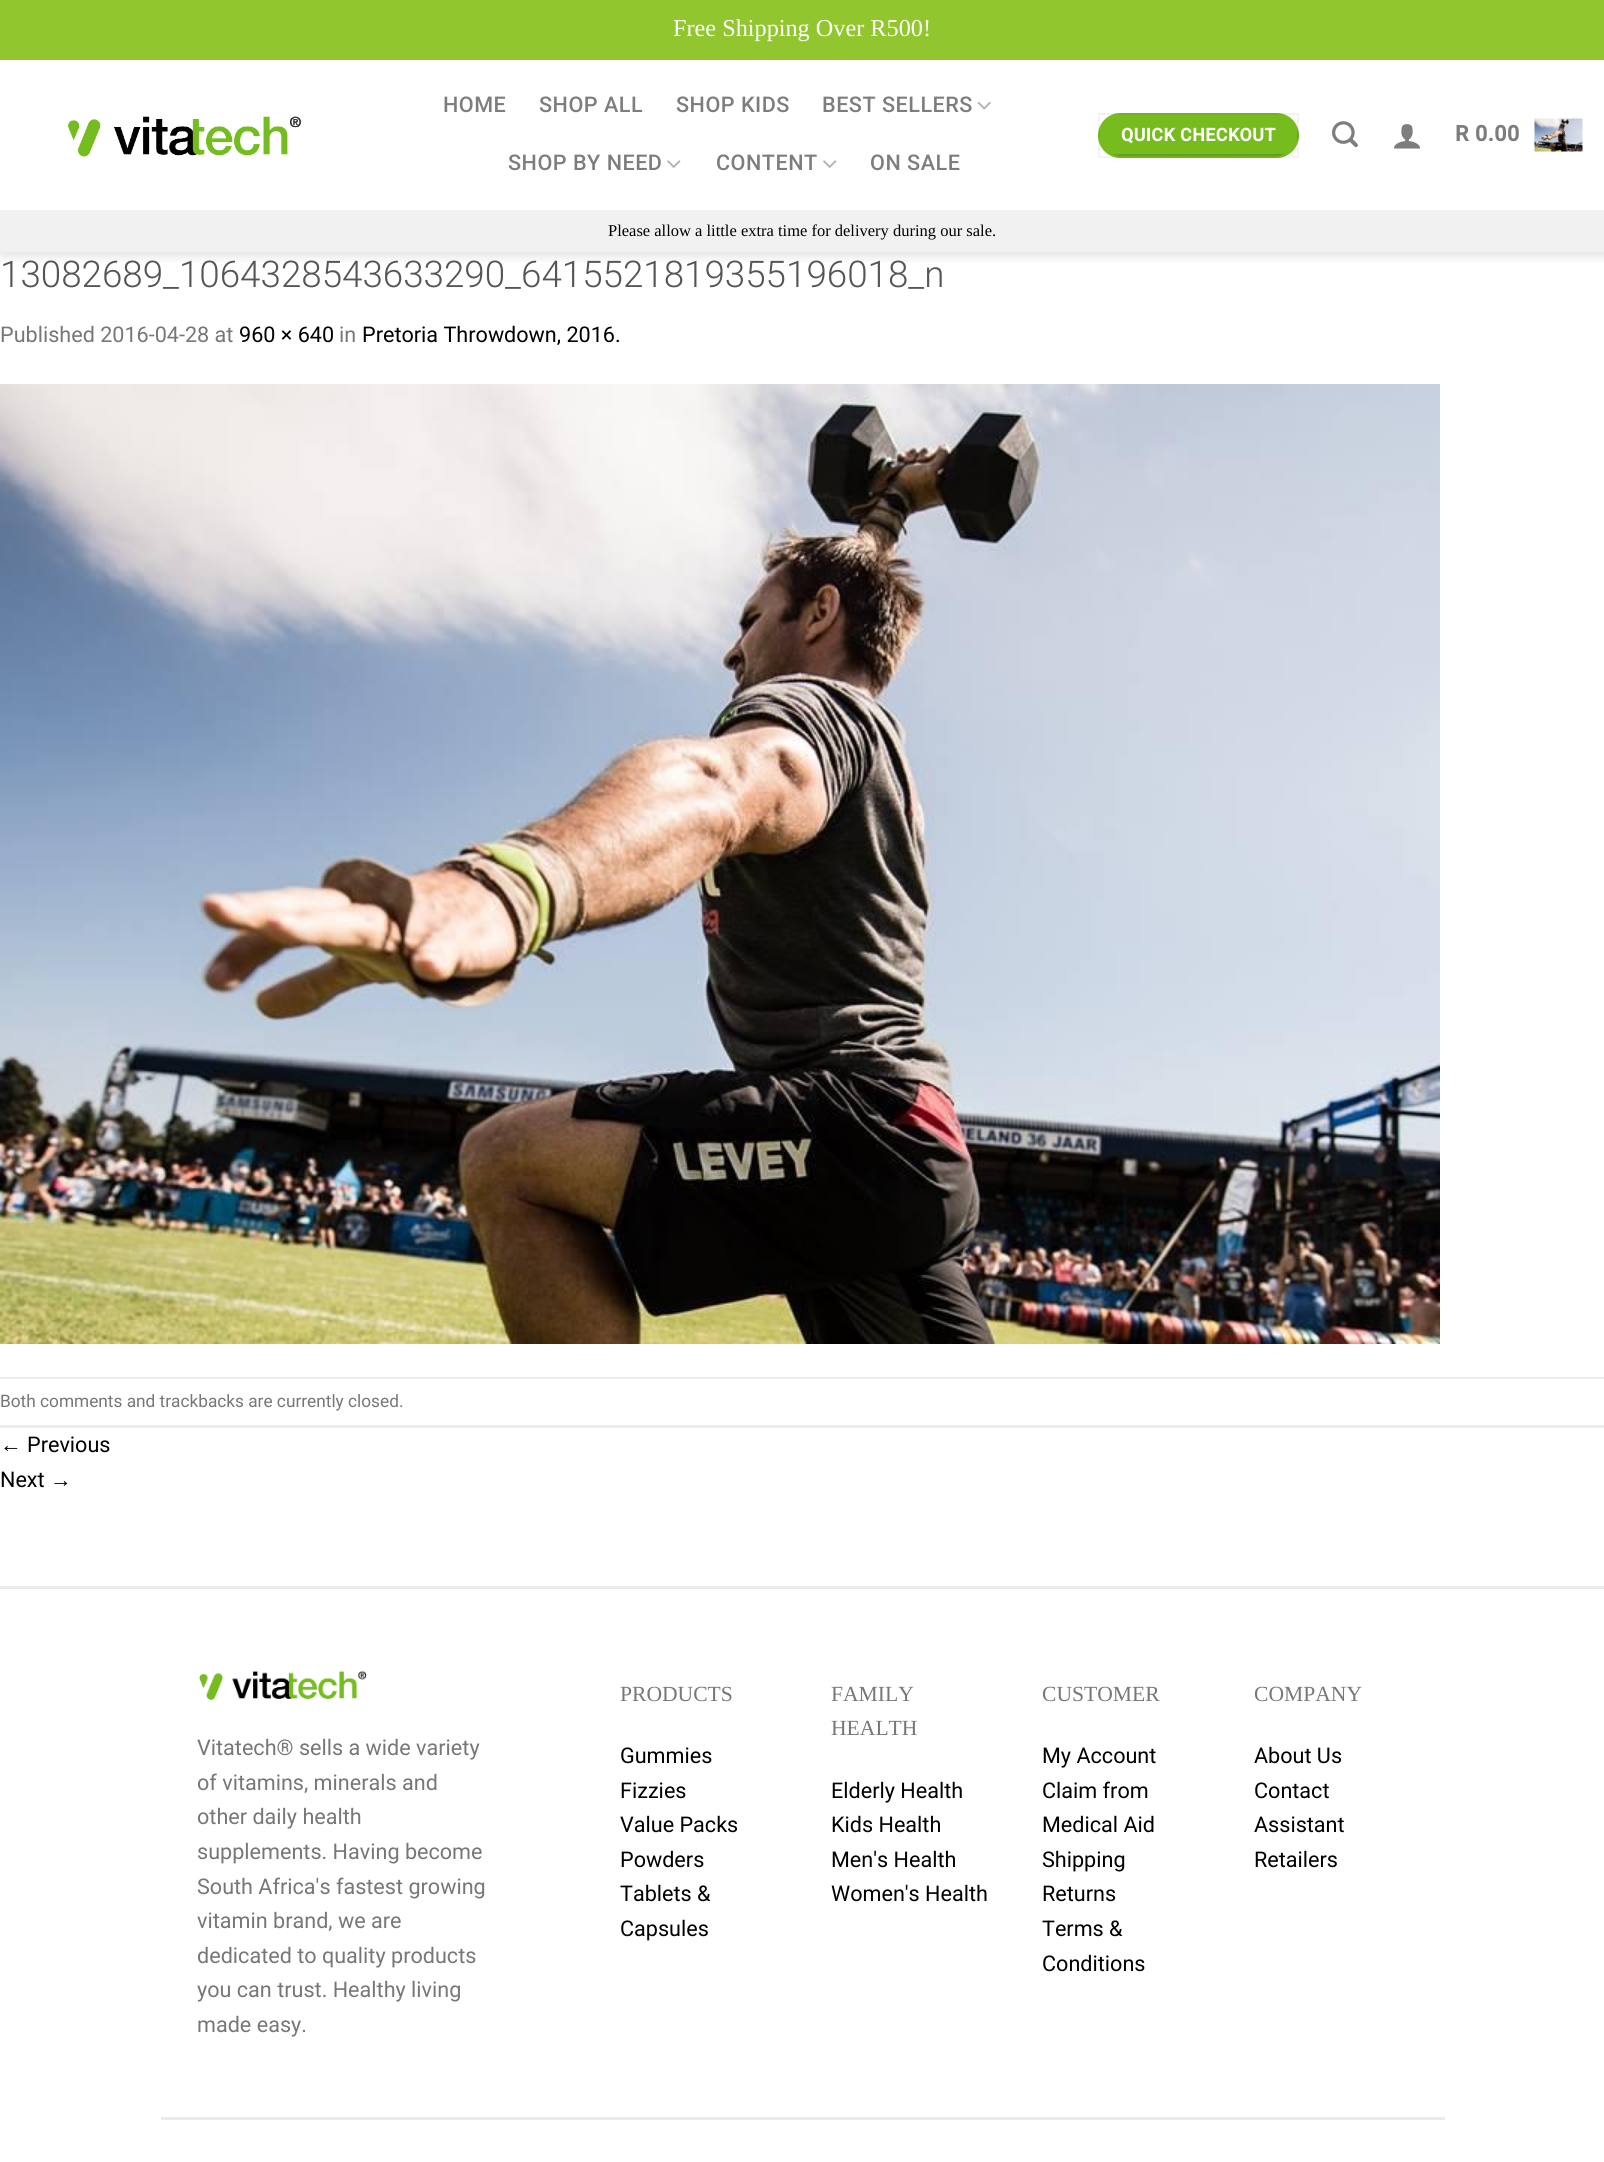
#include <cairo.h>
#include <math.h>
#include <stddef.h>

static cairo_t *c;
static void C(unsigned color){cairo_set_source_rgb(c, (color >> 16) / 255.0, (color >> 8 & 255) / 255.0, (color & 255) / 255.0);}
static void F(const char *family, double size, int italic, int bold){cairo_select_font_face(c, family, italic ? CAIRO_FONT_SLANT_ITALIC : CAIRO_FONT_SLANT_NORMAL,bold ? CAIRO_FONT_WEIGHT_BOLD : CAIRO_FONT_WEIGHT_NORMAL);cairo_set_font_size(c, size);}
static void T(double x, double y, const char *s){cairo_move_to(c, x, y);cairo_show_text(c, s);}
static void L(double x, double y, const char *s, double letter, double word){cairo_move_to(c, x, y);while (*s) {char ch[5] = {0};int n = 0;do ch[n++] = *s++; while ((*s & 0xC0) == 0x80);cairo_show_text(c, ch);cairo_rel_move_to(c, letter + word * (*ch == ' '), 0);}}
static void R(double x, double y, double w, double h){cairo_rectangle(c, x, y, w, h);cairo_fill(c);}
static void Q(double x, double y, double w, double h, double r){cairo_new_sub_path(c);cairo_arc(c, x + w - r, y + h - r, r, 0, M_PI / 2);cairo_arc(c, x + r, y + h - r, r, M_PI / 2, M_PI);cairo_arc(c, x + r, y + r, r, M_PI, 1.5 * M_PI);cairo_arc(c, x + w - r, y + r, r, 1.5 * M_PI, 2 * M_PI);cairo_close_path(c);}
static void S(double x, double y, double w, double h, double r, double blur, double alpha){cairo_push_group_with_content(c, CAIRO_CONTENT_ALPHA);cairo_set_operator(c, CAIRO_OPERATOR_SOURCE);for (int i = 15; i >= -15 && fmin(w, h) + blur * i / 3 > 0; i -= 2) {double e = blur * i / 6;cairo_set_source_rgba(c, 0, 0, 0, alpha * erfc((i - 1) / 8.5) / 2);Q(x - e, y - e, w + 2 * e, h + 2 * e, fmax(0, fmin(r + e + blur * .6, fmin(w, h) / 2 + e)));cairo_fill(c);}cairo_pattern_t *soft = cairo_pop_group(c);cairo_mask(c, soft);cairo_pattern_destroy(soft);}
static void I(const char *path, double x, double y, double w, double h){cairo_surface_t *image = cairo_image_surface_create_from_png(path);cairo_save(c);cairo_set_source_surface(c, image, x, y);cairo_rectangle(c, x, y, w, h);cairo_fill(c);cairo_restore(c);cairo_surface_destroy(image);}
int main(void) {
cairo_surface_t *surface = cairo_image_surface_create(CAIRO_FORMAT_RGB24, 1604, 2162);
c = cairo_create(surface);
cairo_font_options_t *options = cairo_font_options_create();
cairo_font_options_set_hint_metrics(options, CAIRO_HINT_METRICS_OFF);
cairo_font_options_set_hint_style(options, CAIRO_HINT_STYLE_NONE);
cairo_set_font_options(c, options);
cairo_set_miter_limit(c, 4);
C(0xffffff);
cairo_paint(c);
cairo_save(c);
cairo_rectangle(c,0,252,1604,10);
cairo_clip(c);
C(0x000000);
S(2,2,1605,252,0,7.5,.15);
cairo_restore(c);
C(0x91c62f);
R(0,0,1604,60);
F("Liberation Serif",24.25,0,0);
C(0xffffff);
T(673,36,"Free Shipping Over R500!");
I("1.png",68,116,234,41);
F("Roboto Medium",21.6,0,0);
C(0x7d7d7d);
L(443,112,"HOME",.5,0);
L(539,112,"SHOP ALL",.5,0);
L(676,112,"SHOP KIDS",.5,0);
L(822,112,"BEST SELLERS",.5,0);
I("2.png",977,101,14,9);
L(508,170,"SHOP BY NEED",.5,0);
I("3.png",667,160,14,8);
L(716,170,"CONTENT",.5,0);
I("3.png",823,160,14,8);
L(870,170,"ON SALE",.5,0);
C(0x77bc1f);
Q(1098,113,201,45,22.5);
cairo_fill(c);
cairo_rectangle(c,1099,114,199,43);
cairo_set_source_rgba(c,0,0,0,0.05);
cairo_stroke(c);
F("Roboto",17.75,0,1);
C(0xffffff);
L(1121,141,"QUICK CHECKOUT",.5,0);
cairo_set_source_rgba(c,0,0,0,0.15);
cairo_set_fill_rule(c,CAIRO_FILL_RULE_EVEN_ODD);
cairo_new_path(c);
cairo_move_to(c,1112,154);
cairo_curve_to(c,1115,155,1118,156,1121,156);
cairo_line_to(c,1277,156);
cairo_curve_to(c,1280,156,1283,155,1286,154);
cairo_close_path(c);
cairo_move_to(c,1297,141);
cairo_curve_to(c,1298,137,1298,133,1297,129);
cairo_close_path(c);
cairo_fill(c);
I("4.png",1332,121,26,27);
I("5.png",1393,124,28,25);
F("Roboto",21.6,0,1);
C(0x7d7d7d);
L(1455,141,"R 0.00",.5,0);
I("6.png",1534,118,49,34);
C(0xf1f1f1);
R(0,210,1604,42);
F("Liberation Serif",16.5,0,0);
C(0x000000);
T(608,236,"Please allow a little extra time for delivery during our sale.");
F("Roboto Light",36.75,0,0);
C(0x555555);
T(0,287,"13082689_1064328543633290_6415521819355196018_n");
F("Roboto",21.6,0,0);
C(0x777777);
T(0,342,"Published 2016-04-28 at");
C(0x000000);
T(239,342,"960 × 640");
C(0x777777);
T(339,342,"in");
C(0x000000);
T(362,342,"Pretoria Throwdown, 2016.");
I("7.png",0,384,1440,960);
C(0xececec);
R(0,1377,1604,2);
R(0,1425,1604,3);
F("Roboto",17.25,0,0);
C(0x777777);
T(0,1407,"Both comments and trackbacks are currently closed.");
F("Liberation Sans",21.6,0,0);
C(0x000000);
T(0,1452,"←");
F("Roboto",21.6,0,0);
T(27,1452,"Previous");
T(0,1487,"Next");
F("Liberation Sans",21.6,0,0);
T(50,1487,"→");
C(0xebebeb);
R(0,1586,1604,3);
I("8.png",199,1671,168,29);
F("Roboto",21.6,0,0);
C(0x777777);
T(197,1755,"Vitatech® sells a wide variety");
T(197,1790,"of vitamins, minerals and");
T(197,1824,"other daily health");
T(197,1859,"supplements. Having become");
T(197,1894,"South Africa's fastest growing");
T(197,1928,"vitamin brand, we are");
T(197,1963,"dedicated to quality products");
T(197,1997,"you can trust. Healthy living");
T(197,2032,"made easy.");
F("Liberation Serif",21.6,0,0);
T(620,1701,"PRODUCTS");
F("Roboto",21.6,0,0);
C(0x000000);
T(620,1763,"Gummies");
T(620,1798,"Fizzies");
T(620,1832,"Value Packs");
T(620,1867,"Powders");
T(620,1901,"Tablets &");
T(620,1936,"Capsules");
F("Liberation Serif",21.6,0,0);
C(0x777777);
T(831,1701,"FAMILY");
T(831,1735,"HEALTH");
F("Roboto",21.6,0,0);
C(0x000000);
T(831,1798,"Elderly Health");
T(831,1832,"Kids Health");
T(831,1867,"Men's Health");
T(831,1901,"Women's Health");
F("Liberation Serif",21.6,0,0);
C(0x777777);
T(1042,1701,"CUSTOMER");
F("Roboto",21.6,0,0);
C(0x000000);
T(1042,1763,"My Account");
T(1042,1798,"Claim from");
T(1042,1832,"Medical Aid");
T(1042,1867,"Shipping");
T(1042,1901,"Returns");
T(1042,1936,"Terms &");
T(1042,1971,"Conditions");
F("Liberation Serif",21.6,0,0);
C(0x777777);
T(1254,1701,"COMPANY");
F("Roboto",21.6,0,0);
C(0x000000);
T(1254,1763,"About Us");
T(1254,1798,"Contact");
T(1254,1832,"Assistant");
T(1254,1867,"Retailers");
C(0xebebeb);
R(161,2117,1284,3);
cairo_surface_write_to_png(surface, "o.png");
cairo_font_options_destroy(options);
cairo_destroy(c);
cairo_surface_destroy(surface);
return 0;
}
